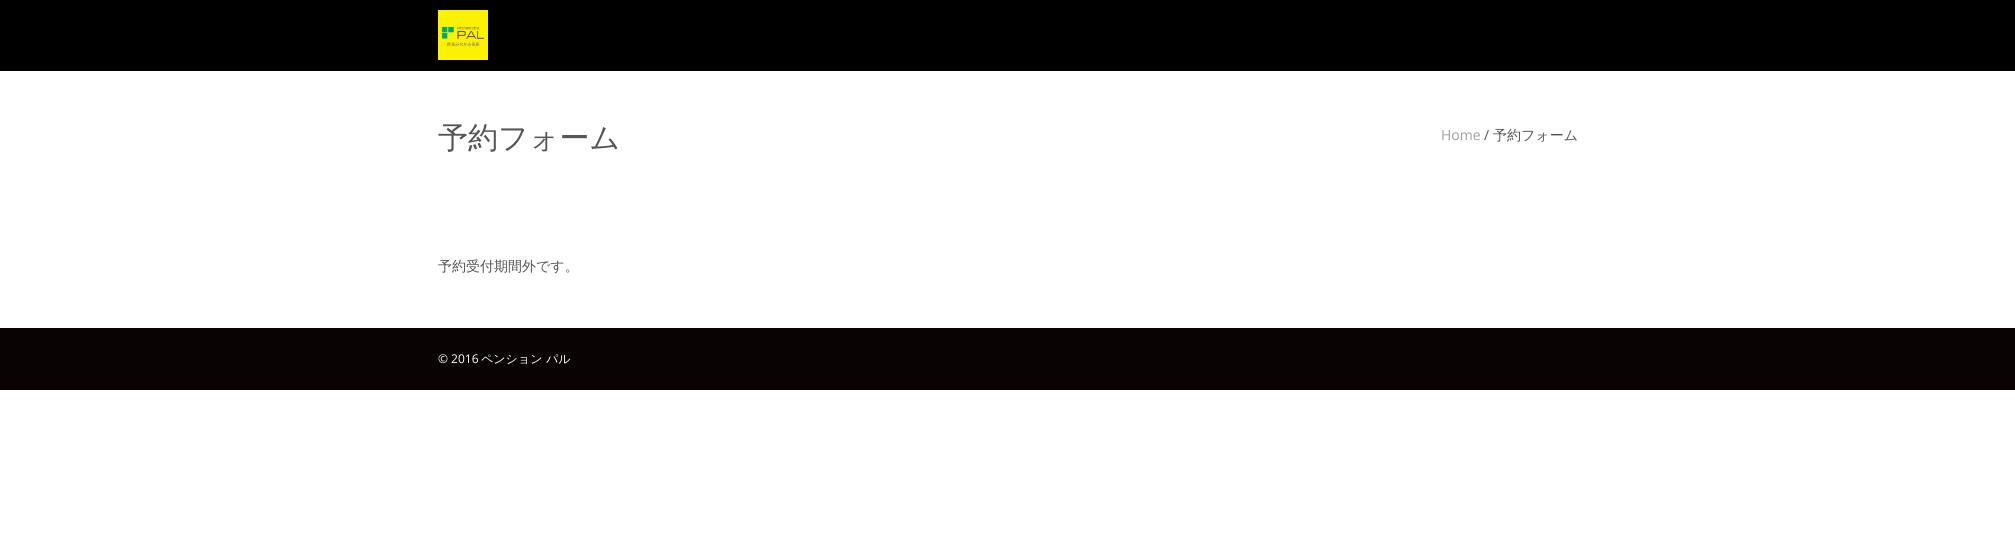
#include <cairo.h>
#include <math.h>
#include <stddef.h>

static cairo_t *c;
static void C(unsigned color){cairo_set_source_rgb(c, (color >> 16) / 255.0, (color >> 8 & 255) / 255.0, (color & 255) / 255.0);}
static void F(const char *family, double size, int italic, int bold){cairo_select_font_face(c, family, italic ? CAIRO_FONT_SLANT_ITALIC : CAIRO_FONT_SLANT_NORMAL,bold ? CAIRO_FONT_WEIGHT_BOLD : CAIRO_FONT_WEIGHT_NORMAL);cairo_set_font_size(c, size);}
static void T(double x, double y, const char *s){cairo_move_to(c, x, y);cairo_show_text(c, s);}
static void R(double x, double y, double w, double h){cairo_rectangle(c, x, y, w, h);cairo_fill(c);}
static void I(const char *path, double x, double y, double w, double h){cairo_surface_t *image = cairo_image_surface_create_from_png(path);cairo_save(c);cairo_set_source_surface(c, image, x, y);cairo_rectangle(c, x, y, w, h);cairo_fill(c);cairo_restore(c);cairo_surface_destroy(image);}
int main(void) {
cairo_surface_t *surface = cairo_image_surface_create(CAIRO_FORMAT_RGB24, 2015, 548);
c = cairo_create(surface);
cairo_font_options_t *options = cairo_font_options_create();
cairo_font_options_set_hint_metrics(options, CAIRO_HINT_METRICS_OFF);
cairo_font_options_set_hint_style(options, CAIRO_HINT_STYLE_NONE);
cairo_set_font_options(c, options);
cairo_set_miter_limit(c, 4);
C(0xffffff);
cairo_paint(c);
C(0x000000);
R(0,0,2015,71);
I("1.png",438,10,50,50);
F("WenQuanYi Zen Hei Medium",30,0,0);
C(0x555555);
T(438,148,"予約フォーム");
F("Open Sans",14,0,0);
C(0xa0a0a0);
T(1441,140,"Home");
C(0x555555);
T(1484,140,"/");
F("WenQuanYi Zen Hei Medium",14,0,0);
T(1493,140,"予約フォーム");
T(438,271,"予約受付期間外です。");
C(0x0a0303);
R(0,328,2015,62);
F("Open Sans",12,0,0);
C(0xffffff);
T(438,363,"© 2016");
F("WenQuanYi Zen Hei Medium",12,0,0);
T(481,363,"ペンション");
T(546,363,"パル");
cairo_surface_write_to_png(surface, "o.png");
cairo_font_options_destroy(options);
cairo_destroy(c);
cairo_surface_destroy(surface);
return 0;
}
